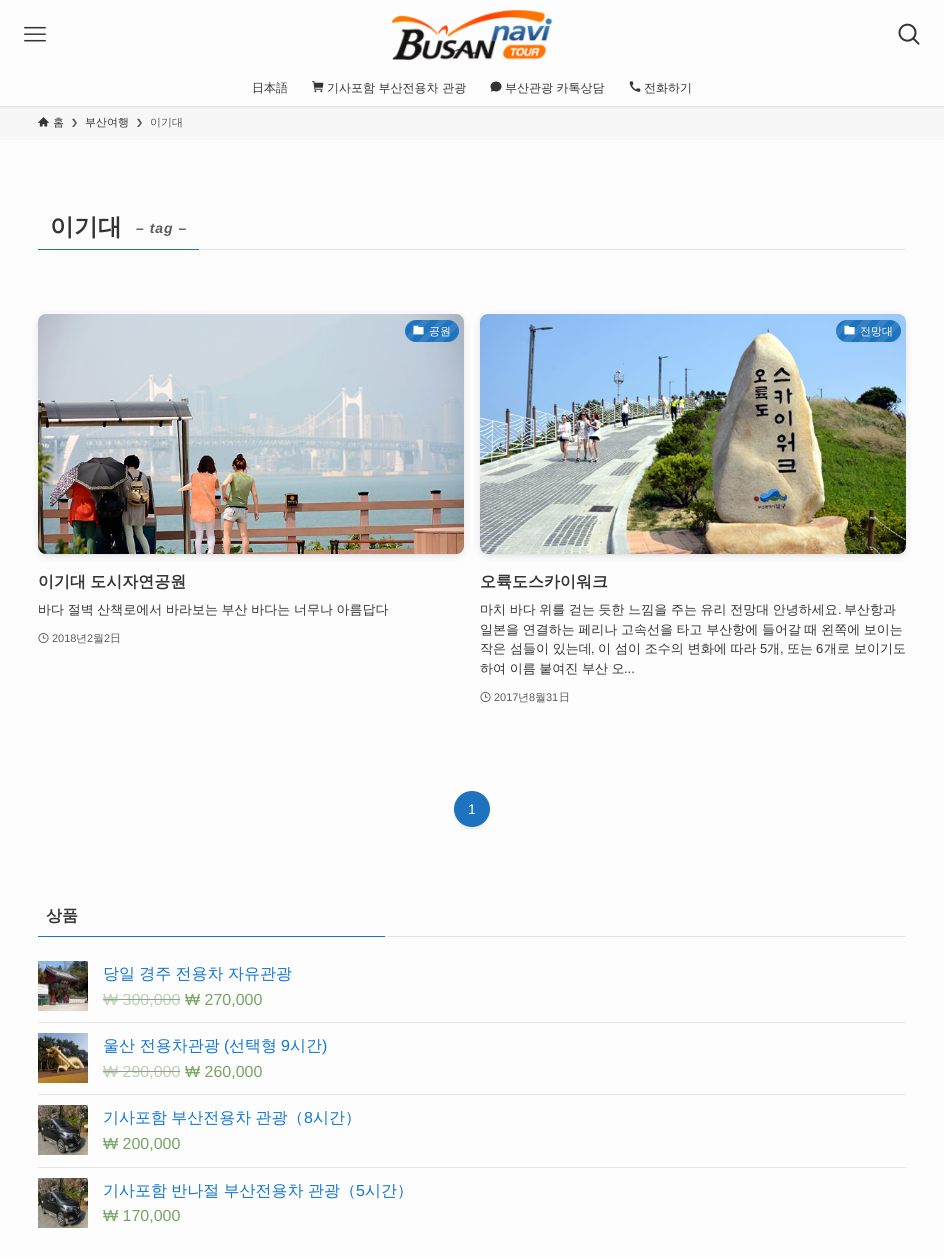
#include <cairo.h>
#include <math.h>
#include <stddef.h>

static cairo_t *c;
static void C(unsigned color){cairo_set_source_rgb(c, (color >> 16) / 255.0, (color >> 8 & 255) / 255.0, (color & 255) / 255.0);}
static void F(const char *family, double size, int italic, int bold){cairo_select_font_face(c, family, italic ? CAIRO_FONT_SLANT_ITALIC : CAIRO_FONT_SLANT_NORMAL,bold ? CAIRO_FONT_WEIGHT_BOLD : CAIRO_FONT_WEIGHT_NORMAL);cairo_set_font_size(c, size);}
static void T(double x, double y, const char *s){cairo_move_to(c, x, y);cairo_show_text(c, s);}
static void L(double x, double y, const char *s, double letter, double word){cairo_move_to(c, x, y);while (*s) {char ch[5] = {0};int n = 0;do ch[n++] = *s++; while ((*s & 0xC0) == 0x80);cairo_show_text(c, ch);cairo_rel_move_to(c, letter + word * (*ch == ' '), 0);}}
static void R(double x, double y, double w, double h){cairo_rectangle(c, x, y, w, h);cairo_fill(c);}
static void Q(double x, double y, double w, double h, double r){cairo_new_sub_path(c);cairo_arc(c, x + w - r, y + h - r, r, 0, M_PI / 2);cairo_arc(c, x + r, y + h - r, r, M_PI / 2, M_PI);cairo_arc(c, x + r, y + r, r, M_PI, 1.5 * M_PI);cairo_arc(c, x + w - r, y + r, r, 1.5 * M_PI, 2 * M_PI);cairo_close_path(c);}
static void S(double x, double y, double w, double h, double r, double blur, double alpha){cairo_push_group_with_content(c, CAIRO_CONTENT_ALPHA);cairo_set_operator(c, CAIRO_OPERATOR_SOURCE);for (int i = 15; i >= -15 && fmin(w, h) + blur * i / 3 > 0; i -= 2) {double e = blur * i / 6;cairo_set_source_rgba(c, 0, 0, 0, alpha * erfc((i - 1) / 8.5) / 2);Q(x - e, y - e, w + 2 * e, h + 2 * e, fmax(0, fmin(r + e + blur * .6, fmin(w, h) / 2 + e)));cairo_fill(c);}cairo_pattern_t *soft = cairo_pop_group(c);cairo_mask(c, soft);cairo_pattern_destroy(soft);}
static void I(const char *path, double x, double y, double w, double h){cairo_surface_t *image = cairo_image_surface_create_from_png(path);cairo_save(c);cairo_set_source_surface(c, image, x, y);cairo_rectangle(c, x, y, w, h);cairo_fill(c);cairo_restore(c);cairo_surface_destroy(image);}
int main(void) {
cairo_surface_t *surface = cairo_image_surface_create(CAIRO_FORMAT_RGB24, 944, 1257);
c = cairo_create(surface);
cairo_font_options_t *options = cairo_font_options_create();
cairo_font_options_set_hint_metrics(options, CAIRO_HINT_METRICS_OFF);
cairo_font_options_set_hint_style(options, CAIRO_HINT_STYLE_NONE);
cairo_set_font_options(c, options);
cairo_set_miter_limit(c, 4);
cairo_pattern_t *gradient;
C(0xfdfdfd);
cairo_paint(c);
C(0xf7f7f7);
R(0,106,944,34);
cairo_save(c);
cairo_rectangle(c,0,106,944,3);
cairo_clip(c);
C(0x000000);
S(0,1,944,106,0,2,.12);
cairo_restore(c);
I("1.png",24,26,22,16);
I("2.png",391,10,162,50);
I("3.png",898,23,22,22);
F("WenQuanYi Zen Hei Medium",12,0,0);
C(0x333333);
T(252,92,"日本語");
I("4.png",312,81,12,12);
T(327,92,"기사포함 부산전용차 관광");
I("5.png",490,81,12,11);
T(505,92,"부산관광 카톡상담");
I("6.png",629,81,12,11);
T(644,92,"전화하기");
I("7.png",38,117,11,10);
F("WenQuanYi Zen Hei Medium",11,0,0);
T(53,126,"홈");
C(0x5a5a5a);
cairo_new_path(c);
cairo_move_to(c,74,118.5);
cairo_line_to(c,72,119);
cairo_line_to(c,75,123);
cairo_line_to(c,72,127);
cairo_line_to(c,74,127);
cairo_line_to(c,77,123);
cairo_close_path(c);
cairo_fill(c);
C(0x333333);
T(85,126,"부산여행");
C(0x5a5a5a);
cairo_new_path(c);
cairo_move_to(c,139,118.5);
cairo_line_to(c,137,119);
cairo_line_to(c,140,123);
cairo_line_to(c,137,127);
cairo_line_to(c,139,127);
cairo_line_to(c,142,123);
cairo_close_path(c);
cairo_fill(c);
T(150,126,"이기대");
C(0xe2e2e2);
R(199,249,707,1);
C(0x1e73be);
R(38,249,161,1);
F("WenQuanYi Zen Hei",24,0,1);
C(0x333333);
T(50,235,"이기대");
F("Liberation Sans",14,1,1);
C(0x5a5a5a);
L(136,233,"– tag –",1,0);
C(0x000000);
S(42,322,418,232,4,2,.1);
S(38,316,426,240,8,4,.1);
I("8.png",38,314,426,240);
C(0x1e73be);
Q(405,320,54,22,11);
cairo_fill(c);
gradient = cairo_pattern_create_linear(451,350,409,308);
cairo_pattern_add_color_stop_rgba(gradient,0,1,1,1,.1);
cairo_pattern_add_color_stop_rgba(gradient,.1,1,1,1,.1);
cairo_pattern_add_color_stop_rgba(gradient,.1,1,1,1,0);
cairo_pattern_add_color_stop_rgba(gradient,.2,1,1,1,0);
cairo_pattern_add_color_stop_rgba(gradient,.2,1,1,1,.1);
cairo_pattern_add_color_stop_rgba(gradient,.3,1,1,1,.1);
cairo_pattern_add_color_stop_rgba(gradient,.3,1,1,1,0);
cairo_pattern_add_color_stop_rgba(gradient,.4,1,1,1,0);
cairo_pattern_add_color_stop_rgba(gradient,.4,1,1,1,.1);
cairo_pattern_add_color_stop_rgba(gradient,.5,1,1,1,.1);
cairo_pattern_add_color_stop_rgba(gradient,.5,1,1,1,0);
cairo_pattern_add_color_stop_rgba(gradient,.6,1,1,1,0);
cairo_pattern_add_color_stop_rgba(gradient,.6,1,1,1,.1);
cairo_pattern_add_color_stop_rgba(gradient,.7,1,1,1,.1);
cairo_pattern_add_color_stop_rgba(gradient,.7,1,1,1,0);
cairo_pattern_add_color_stop_rgba(gradient,.8,1,1,1,0);
cairo_pattern_add_color_stop_rgba(gradient,.8,1,1,1,.1);
cairo_pattern_add_color_stop_rgba(gradient,.9,1,1,1,.1);
cairo_pattern_add_color_stop_rgba(gradient,.9,1,1,1,0);
cairo_pattern_add_color_stop_rgba(gradient,1,0,0,0,0);
cairo_set_source(c,gradient);
cairo_pattern_destroy(gradient);
Q(405,320,54,22,11);
cairo_fill(c);
I("9.png",413,325,11,10);
F("WenQuanYi Zen Hei Medium",11,0,0);
C(0xffffff);
T(429,335,"공원");
F("WenQuanYi Zen Hei",16,0,1);
C(0x333333);
L(38,587,"이기대 도시자연공원",0,-.5);
F("WenQuanYi Zen Hei Medium",13,0,0);
L(38,614,"바다 절벽 산책로에서 바라보는 부산 바다는 너무나 아름답다",0,-.25);
I("10.png",38,633,11,11);
F("Liberation Sans",11,0,0);
C(0x5a5a5a);
T(52,642,"2018");
F("WenQuanYi Zen Hei Medium",11,0,0);
T(76,642,"년");
F("Liberation Sans",11,0,0);
T(87,642,"2");
F("WenQuanYi Zen Hei Medium",11,0,0);
T(93,642,"월");
F("Liberation Sans",11,0,0);
T(104,642,"2");
F("WenQuanYi Zen Hei Medium",11,0,0);
T(110,642,"日");
C(0x000000);
S(484,322,418,232,4,2,.1);
S(480,316,426,240,8,4,.1);
I("11.png",480,314,426,240);
C(0x1e73be);
Q(836,320,65,22,11);
cairo_fill(c);
gradient = cairo_pattern_create_linear(890,353,839,302);
cairo_pattern_add_color_stop_rgba(gradient,0,1,1,1,.1);
cairo_pattern_add_color_stop_rgba(gradient,.08,1,1,1,.1);
cairo_pattern_add_color_stop_rgba(gradient,.08,1,1,1,0);
cairo_pattern_add_color_stop_rgba(gradient,.17,1,1,1,0);
cairo_pattern_add_color_stop_rgba(gradient,.17,1,1,1,.1);
cairo_pattern_add_color_stop_rgba(gradient,.25,1,1,1,.1);
cairo_pattern_add_color_stop_rgba(gradient,.25,1,1,1,0);
cairo_pattern_add_color_stop_rgba(gradient,.33,1,1,1,0);
cairo_pattern_add_color_stop_rgba(gradient,.33,1,1,1,.1);
cairo_pattern_add_color_stop_rgba(gradient,.42,1,1,1,.1);
cairo_pattern_add_color_stop_rgba(gradient,.42,1,1,1,0);
cairo_pattern_add_color_stop_rgba(gradient,.5,1,1,1,0);
cairo_pattern_add_color_stop_rgba(gradient,.5,1,1,1,.1);
cairo_pattern_add_color_stop_rgba(gradient,.58,1,1,1,.1);
cairo_pattern_add_color_stop_rgba(gradient,.58,1,1,1,0);
cairo_pattern_add_color_stop_rgba(gradient,.67,1,1,1,0);
cairo_pattern_add_color_stop_rgba(gradient,.67,1,1,1,.1);
cairo_pattern_add_color_stop_rgba(gradient,.75,1,1,1,.1);
cairo_pattern_add_color_stop_rgba(gradient,.75,1,1,1,0);
cairo_pattern_add_color_stop_rgba(gradient,.83,1,1,1,0);
cairo_pattern_add_color_stop_rgba(gradient,.83,1,1,1,.1);
cairo_pattern_add_color_stop_rgba(gradient,.92,1,1,1,.1);
cairo_pattern_add_color_stop_rgba(gradient,.92,1,1,1,0);
cairo_pattern_add_color_stop_rgba(gradient,1,0,0,0,0);
cairo_set_source(c,gradient);
cairo_pattern_destroy(gradient);
Q(836,320,65,22,11);
cairo_fill(c);
I("12.png",844,325,11,10);
C(0xffffff);
T(860,335,"전망대");
F("WenQuanYi Zen Hei",16,0,1);
C(0x333333);
T(480,587,"오륙도스카이워크");
F("WenQuanYi Zen Hei Medium",13,0,0);
L(480,614,"마치 바다 위를 걷는 듯한 느낌을 주는 유리 전망대 안녕하세요",0,-.25);
F("Liberation Sans",13,0,0);
T(838,614,".");
F("WenQuanYi Zen Hei Medium",13,0,0);
T(844,614,"부산항과");
L(480,634,"일본을 연결하는 페리나 고속선을 타고 부산항에 들어갈 때 왼쪽에 보이는",0,-.25);
T(480,653,"작은 섬들이 있는데");
F("Liberation Sans",13,0,0);
T(591,653,",");
F("WenQuanYi Zen Hei Medium",13,0,0);
T(598,653,"이 섬이 조수의 변화에 따라");
F("Liberation Sans",13,0,0);
T(760,653,"5");
F("WenQuanYi Zen Hei Medium",13,0,0);
T(767,653,"개");
F("Liberation Sans",13,0,0);
T(780,653,",");
F("WenQuanYi Zen Hei Medium",13,0,0);
T(787,653,"또는");
F("Liberation Sans",13,0,0);
T(816,653,"6");
F("WenQuanYi Zen Hei Medium",13,0,0);
T(824,653,"개로 보이기도");
L(480,673,"하여 이름 붙여진 부산 오",0,-.25);
F("Liberation Sans",13,0,0);
T(624,673,"...");
I("10.png",480,692,11,11);
F("Liberation Sans",11,0,0);
C(0x5a5a5a);
T(494,701,"2017");
F("WenQuanYi Zen Hei Medium",11,0,0);
T(518,701,"년");
F("Liberation Sans",11,0,0);
T(529,701,"8");
F("WenQuanYi Zen Hei Medium",11,0,0);
T(535,701,"월");
F("Liberation Sans",11,0,0);
T(546,701,"31");
F("WenQuanYi Zen Hei Medium",11,0,0);
T(559,701,"日");
C(0x000000);
S(458,799,28,28,14,2,.1);
S(454,793,36,36,18,2,.05);
C(0x1e73be);
cairo_arc(c,472,809,18,0,2 * M_PI);
cairo_fill(c);
F("Liberation Sans",14,0,0);
C(0xffffff);
T(468,814,"1");
F("WenQuanYi Zen Hei",16,0,1);
C(0x333333);
T(46,921,"상품");
C(0x1e73be);
R(38,936,347,1);
C(0xe2e2e2);
R(385,936,521,1);
C(0xe4e4e4);
R(38,1022,868,1);
I("13.png",38,961,50,50);
F("WenQuanYi Zen Hei Medium",16,0,0);
C(0x1176d4);
L(103,979,"당일 경주 전용차 자유관광",0,-.5);
F("Liberation Sans",16,0,0);
C(0xbad1b1);
T(103,1005,"₩ 300,000");
C(0x989898);
R(103,999,77,1);
C(0x77a464);
T(185,1005,"₩ 270,000");
C(0xe4e4e4);
R(38,1094,868,1);
I("14.png",38,1033,50,50);
F("WenQuanYi Zen Hei Medium",16,0,0);
C(0x1176d4);
T(103,1051,"울산 전용차관광");
F("Liberation Sans",16,0,0);
T(224,1051,"(");
F("WenQuanYi Zen Hei Medium",16,0,0);
T(229,1051,"선택형");
F("Liberation Sans",16,0,0);
T(281,1051,"9");
F("WenQuanYi Zen Hei Medium",16,0,0);
T(290,1051,"시간");
F("Liberation Sans",16,0,0);
T(322,1051,")");
C(0xbad1b1);
T(103,1077,"₩ 290,000");
C(0x989898);
R(103,1071,77,1);
C(0x77a464);
T(185,1077,"₩ 260,000");
C(0xe4e4e4);
R(38,1167,868,1);
I("15.png",38,1105,50,50);
F("WenQuanYi Zen Hei Medium",16,0,0);
C(0x1176d4);
L(103,1123,"기사포함 부산전용차 관광（",0,-.5);
F("Liberation Sans",16,0,0);
T(304,1123,"8");
F("WenQuanYi Zen Hei Medium",16,0,0);
T(313,1123,"시간）");
F("Liberation Sans",16,0,0);
C(0x77a464);
T(103,1149,"₩ 200,000");
I("16.png",38,1178,50,50);
F("WenQuanYi Zen Hei Medium",16,0,0);
C(0x1176d4);
L(103,1196,"기사포함 반나절 부산전용차 관광（",0,-.5);
F("Liberation Sans",16,0,0);
T(356,1196,"5");
F("WenQuanYi Zen Hei Medium",16,0,0);
T(365,1196,"시간）");
F("Liberation Sans",16,0,0);
C(0x77a464);
T(103,1221,"₩ 170,000");
cairo_surface_write_to_png(surface, "o.png");
cairo_font_options_destroy(options);
cairo_destroy(c);
cairo_surface_destroy(surface);
return 0;
}
